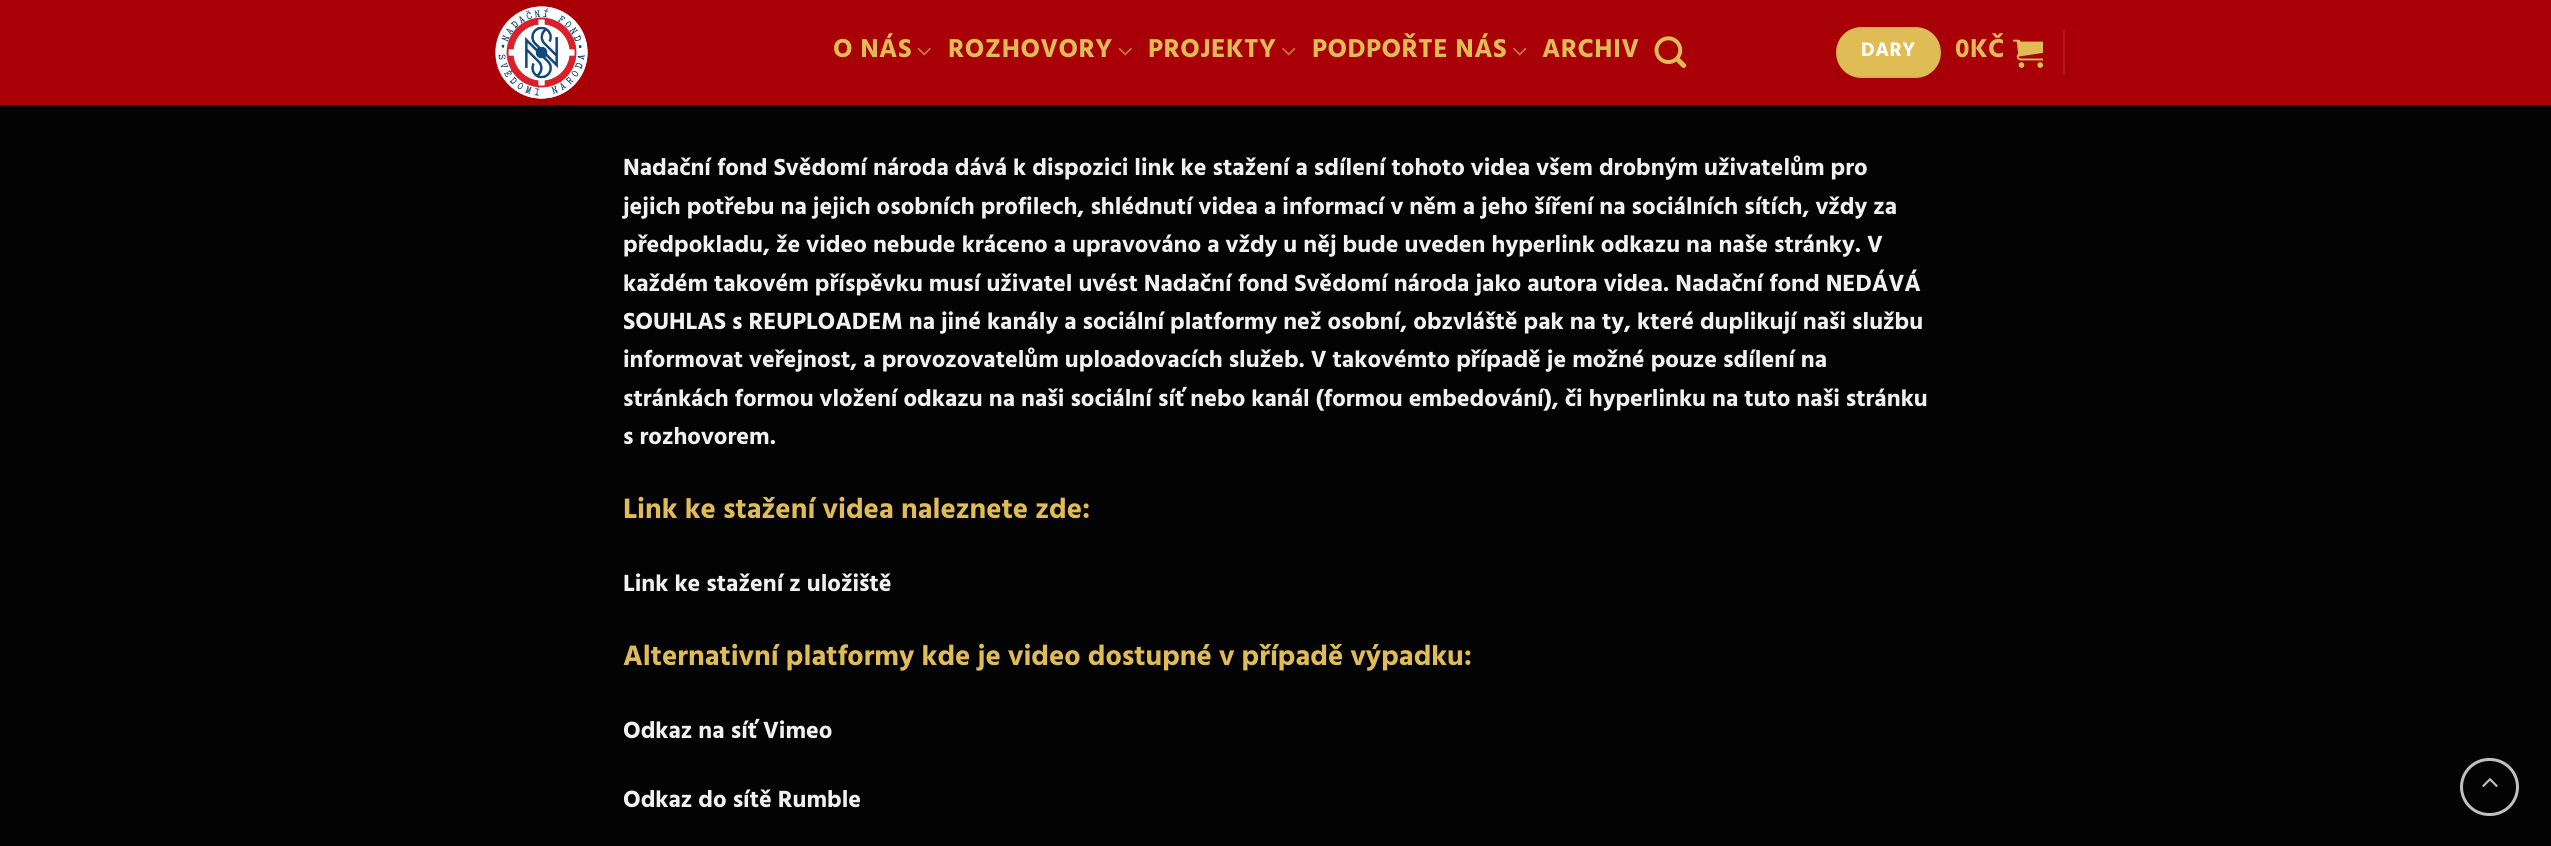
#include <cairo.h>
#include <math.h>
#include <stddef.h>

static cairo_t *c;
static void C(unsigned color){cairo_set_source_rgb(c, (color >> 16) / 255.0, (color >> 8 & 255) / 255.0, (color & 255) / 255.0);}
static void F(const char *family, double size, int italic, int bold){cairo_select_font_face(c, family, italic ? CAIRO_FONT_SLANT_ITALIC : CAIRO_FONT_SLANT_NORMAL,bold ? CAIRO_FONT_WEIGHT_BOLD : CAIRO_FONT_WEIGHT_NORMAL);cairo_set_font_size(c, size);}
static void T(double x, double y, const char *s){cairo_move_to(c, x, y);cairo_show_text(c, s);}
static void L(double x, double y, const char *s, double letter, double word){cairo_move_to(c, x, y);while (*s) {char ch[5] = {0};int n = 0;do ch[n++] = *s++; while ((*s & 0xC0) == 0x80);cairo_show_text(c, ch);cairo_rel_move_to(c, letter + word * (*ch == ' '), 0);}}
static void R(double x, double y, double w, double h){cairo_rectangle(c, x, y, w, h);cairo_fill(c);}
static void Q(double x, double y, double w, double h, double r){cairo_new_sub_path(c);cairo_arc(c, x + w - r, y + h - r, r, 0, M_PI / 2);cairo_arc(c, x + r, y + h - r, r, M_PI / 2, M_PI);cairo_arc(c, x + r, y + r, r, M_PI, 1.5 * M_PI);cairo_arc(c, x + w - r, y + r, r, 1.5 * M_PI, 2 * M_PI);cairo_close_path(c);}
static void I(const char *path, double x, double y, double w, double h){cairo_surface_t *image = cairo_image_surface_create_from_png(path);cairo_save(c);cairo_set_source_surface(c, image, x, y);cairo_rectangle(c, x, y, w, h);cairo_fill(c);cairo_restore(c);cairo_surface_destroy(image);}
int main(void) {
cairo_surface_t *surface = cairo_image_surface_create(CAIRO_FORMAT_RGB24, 2551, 846);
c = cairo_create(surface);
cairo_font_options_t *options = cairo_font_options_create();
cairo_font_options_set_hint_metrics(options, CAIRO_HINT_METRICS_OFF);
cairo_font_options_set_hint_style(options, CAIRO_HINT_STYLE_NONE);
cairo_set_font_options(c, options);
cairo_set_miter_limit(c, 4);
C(0x030303);
cairo_paint(c);
cairo_set_source_rgba(c,0.737,0.004,0.031,0.9);
R(0,0,2551,105);
I("1.png",495,6,93,93);
F("Hind Guntur",26.5,0,1);
C(0xe0bc57);
L(833,57,"O NÁS",.5,0);
I("2.png",917,47,14,9);
L(948,57,"ROZHOVORY",.5,0);
I("2.png",1118,47,14,9);
L(1148,57,"PROJEKTY",.5,0);
I("3.png",1282,47,14,9);
L(1312,57,"PODPOŘTE NÁS",.5,0);
I("3.png",1513,47,14,9);
L(1542,57,"ARCHIV",.5,0);
I("4.png",1654,36,33,32);
Q(1836,27,105,51,25.5);
cairo_fill(c);
cairo_rectangle(c,1837,28,103,49);
cairo_set_source_rgba(c,0,0,0,0.05);
cairo_stroke(c);
F("Hind Guntur",20,0,1);
C(0xffffff);
L(1861,56,"DARY",.5,0);
F("Hind Guntur",26.5,0,1);
C(0xe0bc57);
L(1955,57,"0KČ",.5,0);
I("5.png",2013,39,30,29);
C(0xb21b20);
R(2063,30,2,45);
F("Hind Guntur",24,0,1);
C(0xf1f1f1);
T(623,175,"Nadační fond Svědomí národa dává k dispozici link ke stažení a sdílení tohoto videa všem drobným uživatelům pro");
T(623,214,"jejich potřebu na jejich osobních profilech, shlédnutí videa a informací v něm a jeho šíření na sociálních sítích, vždy za");
T(623,252,"předpokladu, že video nebude kráceno a upravováno a vždy u něj bude uveden hyperlink odkazu na naše stránky. V");
T(623,291,"každém takovém příspěvku musí uživatel uvést Nadační fond Svědomí národa jako autora videa. Nadační fond NEDÁVÁ");
T(623,329,"SOUHLAS s REUPLOADEM na jiné kanály a sociální platformy než osobní, obzvláště pak na ty, které duplikují naši službu");
T(623,367,"informovat veřejnost, a provozovatelům uploadovacích služeb. V takovémto případě je možné pouze sdílení na");
T(623,406,"stránkách formou vložení odkazu na naši sociální síť nebo kanál (formou embedování), či hyperlinku na tuto naši stránku");
T(623,444,"s rozhovorem.");
F("Hind Guntur",28.8,0,1);
C(0xe0bc57);
T(623,518,"Link ke stažení videa naleznete zde:");
F("Hind Guntur",24,0,1);
C(0xf1f1f1);
T(623,591,"Link ke stažení z uložiště");
F("Hind Guntur",28.8,0,1);
C(0xe0bc57);
T(623,665,"Alternativní platformy kde je video dostupné v případě výpadku:");
F("Hind Guntur",24,0,1);
C(0xf1f1f1);
T(623,738,"Odkaz na síť Vimeo");
T(623,807,"Odkaz do sítě Rumble");
Q(2461.5,759.5,56,55,27.5);
C(0xc0c0c0);
cairo_set_line_width(c,3);
cairo_stroke(c);
I("6.png",2482,778,16,9);
cairo_surface_write_to_png(surface, "o.png");
cairo_font_options_destroy(options);
cairo_destroy(c);
cairo_surface_destroy(surface);
return 0;
}
